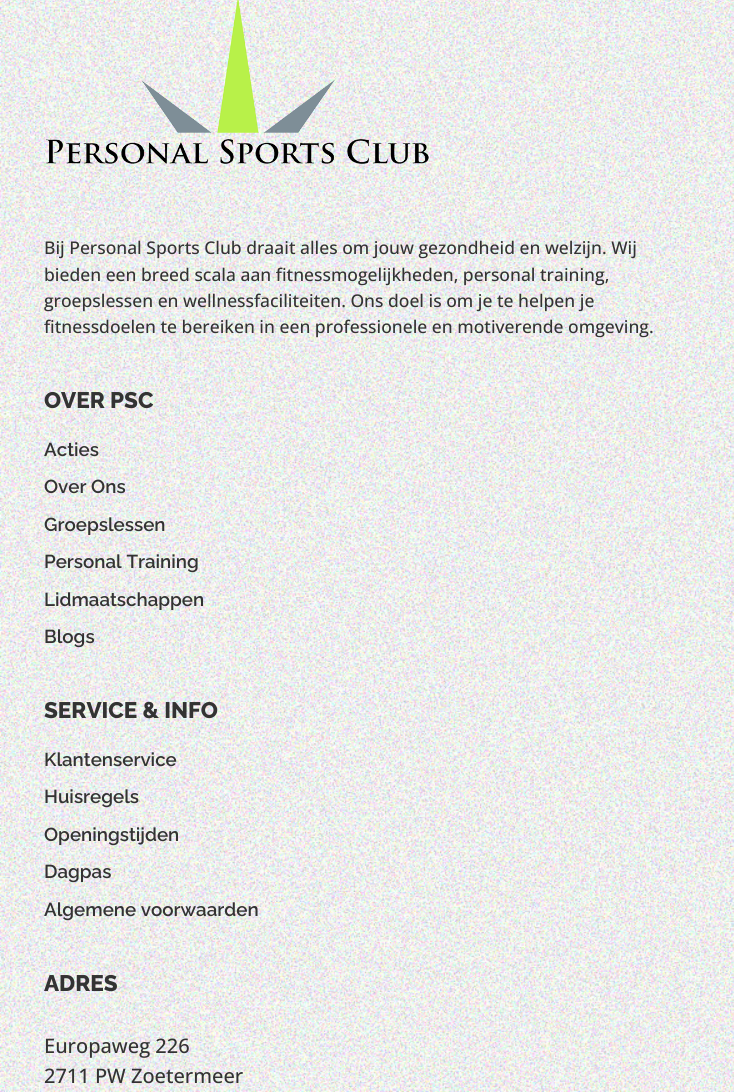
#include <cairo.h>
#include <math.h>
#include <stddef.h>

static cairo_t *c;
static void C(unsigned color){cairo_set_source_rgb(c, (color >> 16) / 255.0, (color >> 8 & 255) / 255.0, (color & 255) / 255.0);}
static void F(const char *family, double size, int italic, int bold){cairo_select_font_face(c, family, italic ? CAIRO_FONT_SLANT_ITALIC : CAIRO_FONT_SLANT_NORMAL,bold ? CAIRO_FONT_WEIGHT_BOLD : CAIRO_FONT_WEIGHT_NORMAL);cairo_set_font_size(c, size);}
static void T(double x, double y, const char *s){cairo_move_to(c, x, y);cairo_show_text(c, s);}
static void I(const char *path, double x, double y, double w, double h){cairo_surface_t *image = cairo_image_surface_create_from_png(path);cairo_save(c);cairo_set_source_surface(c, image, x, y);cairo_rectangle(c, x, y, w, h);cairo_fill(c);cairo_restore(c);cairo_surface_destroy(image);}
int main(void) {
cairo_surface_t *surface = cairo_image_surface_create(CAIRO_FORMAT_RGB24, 734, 1092);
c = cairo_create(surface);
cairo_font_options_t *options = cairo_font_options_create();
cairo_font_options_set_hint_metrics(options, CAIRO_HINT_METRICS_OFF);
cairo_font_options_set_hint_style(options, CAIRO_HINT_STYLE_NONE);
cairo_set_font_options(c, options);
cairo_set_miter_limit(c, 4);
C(0xffffff);
cairo_paint(c);
I("1.png",0,0,734,1092);
I("2.png",45,0,384,164);
F("Open Sans Medium",17.5,0,0);
C(0x333333);
T(44,254,"Bij Personal Sports Club draait alles om jouw gezondheid en welzijn. Wij");
T(44,281,"bieden een breed scala aan fitnessmogelijkheden, personal training,");
T(44,307,"groepslessen en wellnessfaciliteiten. Ons doel is om je te helpen je");
T(44,333,"fitnessdoelen te bereiken in een professionele en motiverende omgeving.");
F("Raleway ExtraBold",22.5,0,0);
T(44,408,"OVER PSC");
F("Raleway SemiBold",18.75,0,0);
T(44,456,"Acties");
T(44,493,"Over Ons");
T(44,531,"Groepslessen");
T(44,568,"Personal Training");
T(44,606,"Lidmaatschappen");
T(44,643,"Blogs");
F("Raleway ExtraBold",22.5,0,0);
T(44,718,"SERVICE & INFO");
F("Raleway SemiBold",18.75,0,0);
T(44,766,"Klantenservice");
T(44,803,"Huisregels");
T(44,841,"Openingstijden");
T(44,878,"Dagpas");
T(44,916,"Algemene voorwaarden");
F("Raleway ExtraBold",22.5,0,0);
T(44,991,"ADRES");
F("Open Sans Medium",20,0,0);
T(44,1053,"Europaweg 226");
T(44,1083,"2711 PW Zoetermeer");
cairo_surface_write_to_png(surface, "o.png");
cairo_font_options_destroy(options);
cairo_destroy(c);
cairo_surface_destroy(surface);
return 0;
}
